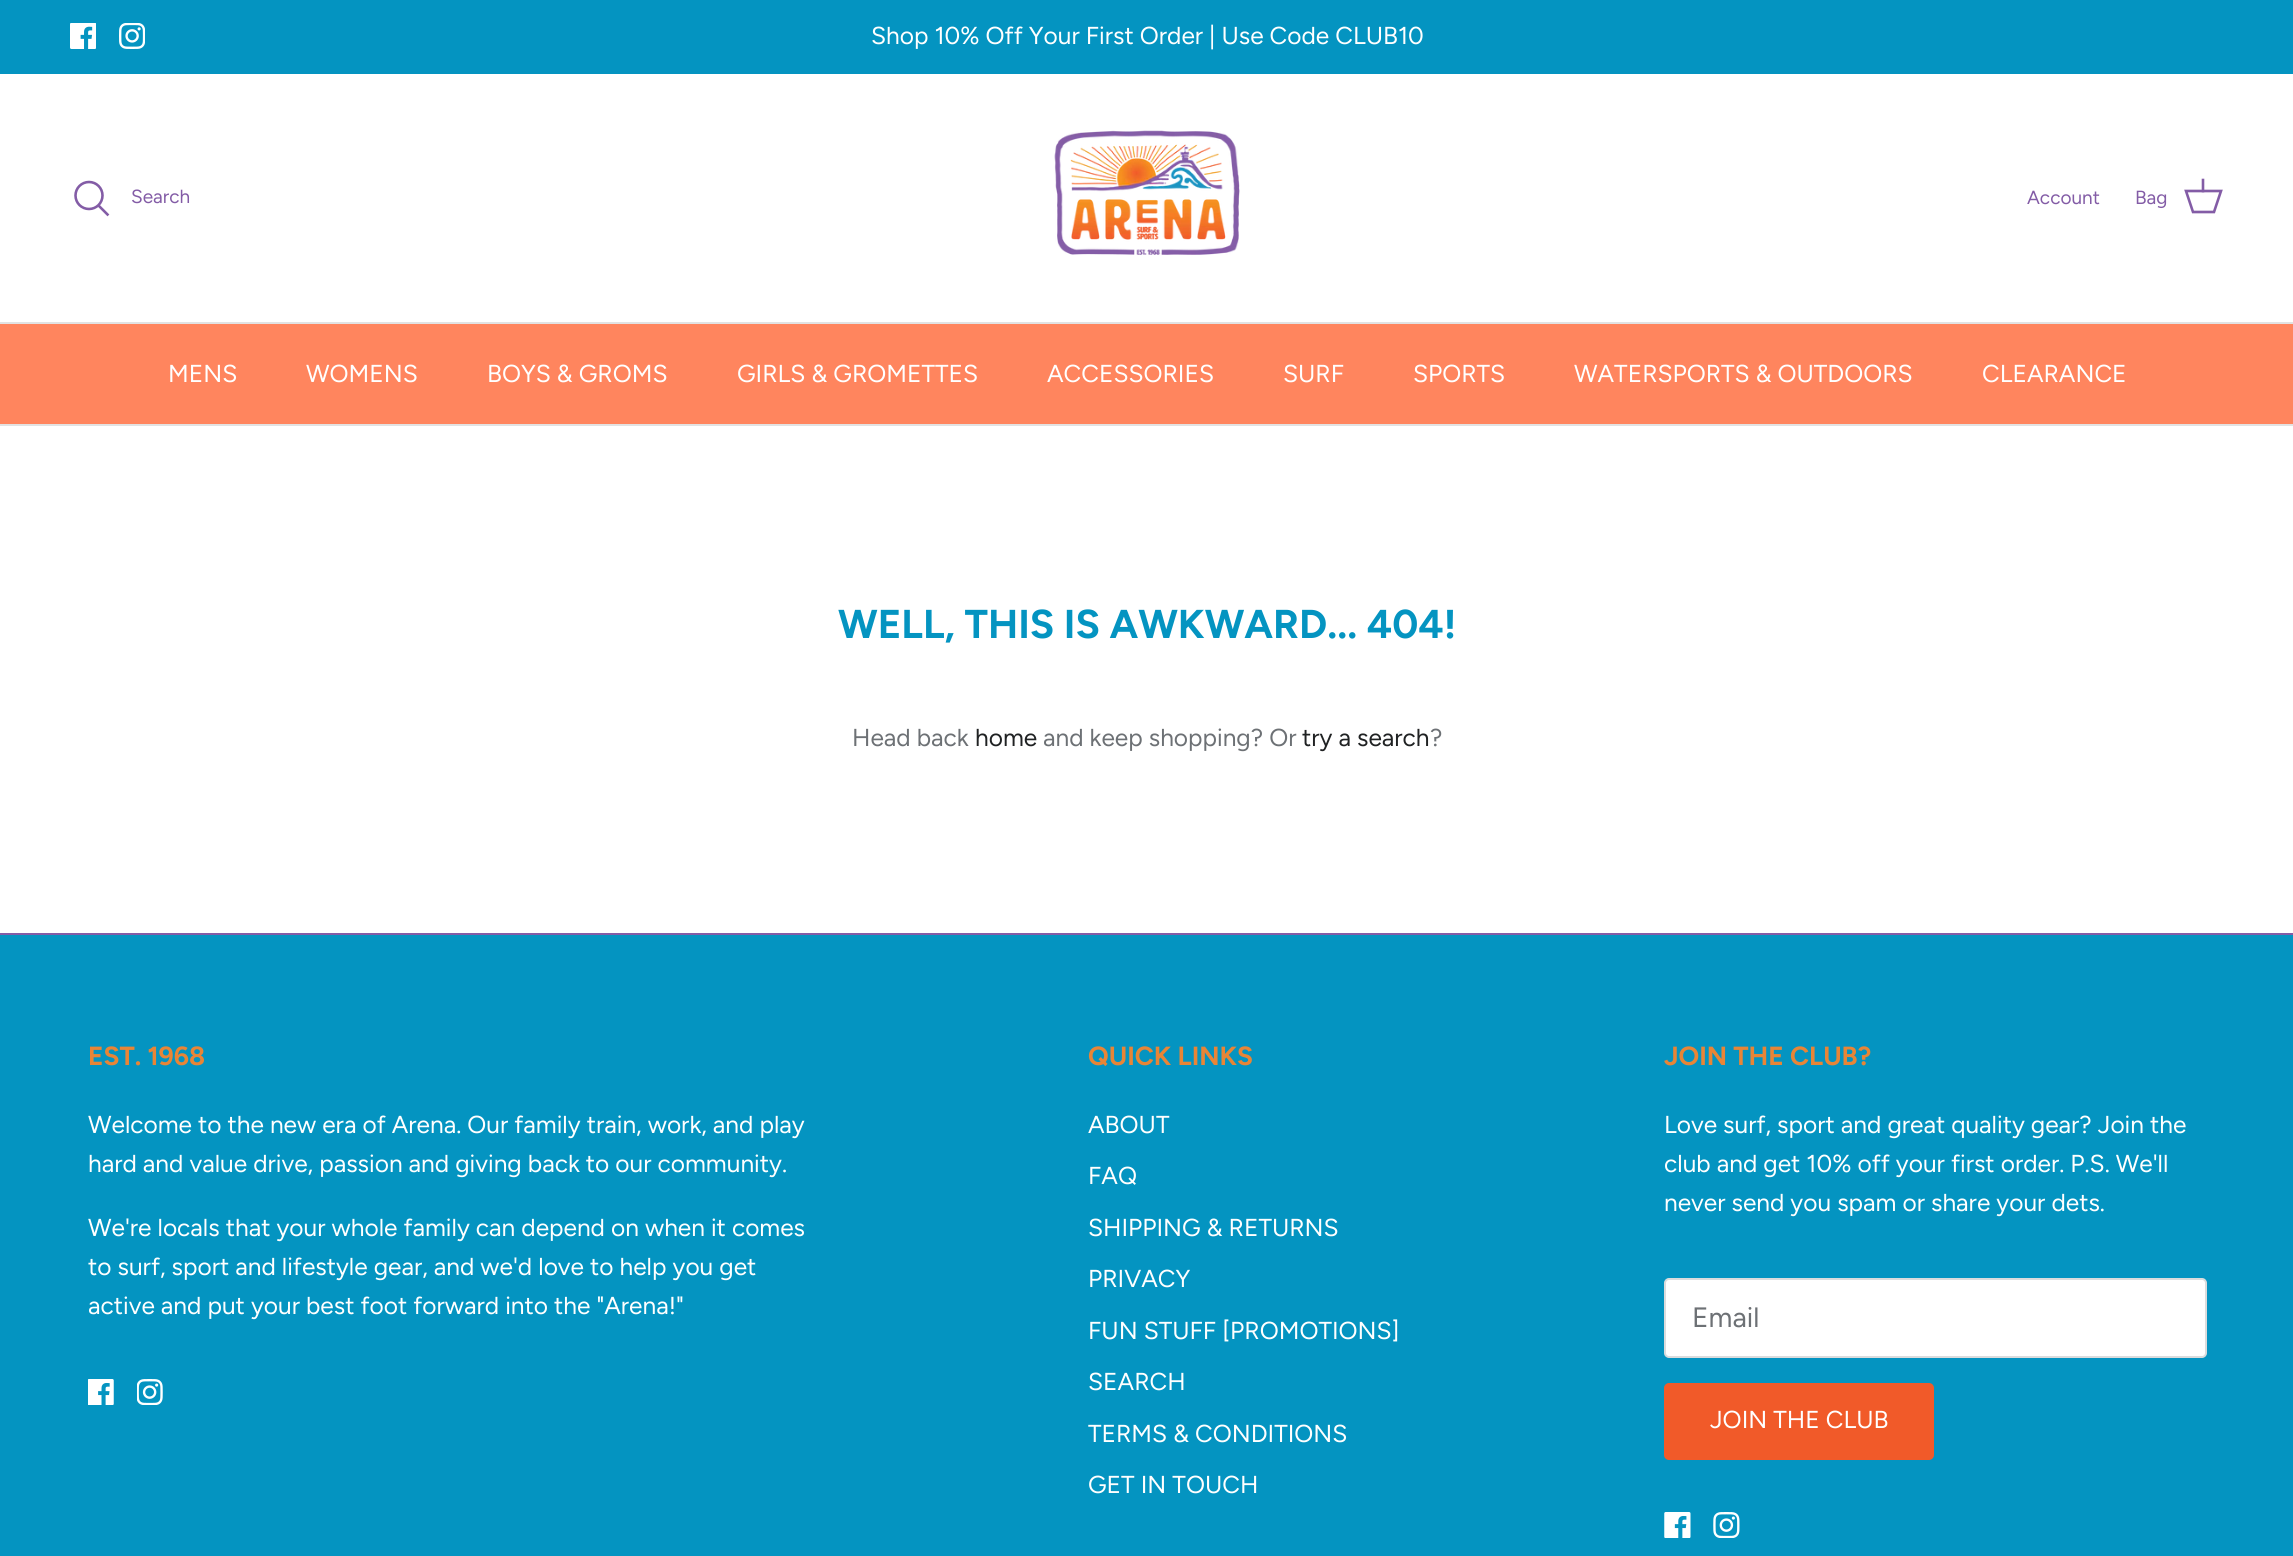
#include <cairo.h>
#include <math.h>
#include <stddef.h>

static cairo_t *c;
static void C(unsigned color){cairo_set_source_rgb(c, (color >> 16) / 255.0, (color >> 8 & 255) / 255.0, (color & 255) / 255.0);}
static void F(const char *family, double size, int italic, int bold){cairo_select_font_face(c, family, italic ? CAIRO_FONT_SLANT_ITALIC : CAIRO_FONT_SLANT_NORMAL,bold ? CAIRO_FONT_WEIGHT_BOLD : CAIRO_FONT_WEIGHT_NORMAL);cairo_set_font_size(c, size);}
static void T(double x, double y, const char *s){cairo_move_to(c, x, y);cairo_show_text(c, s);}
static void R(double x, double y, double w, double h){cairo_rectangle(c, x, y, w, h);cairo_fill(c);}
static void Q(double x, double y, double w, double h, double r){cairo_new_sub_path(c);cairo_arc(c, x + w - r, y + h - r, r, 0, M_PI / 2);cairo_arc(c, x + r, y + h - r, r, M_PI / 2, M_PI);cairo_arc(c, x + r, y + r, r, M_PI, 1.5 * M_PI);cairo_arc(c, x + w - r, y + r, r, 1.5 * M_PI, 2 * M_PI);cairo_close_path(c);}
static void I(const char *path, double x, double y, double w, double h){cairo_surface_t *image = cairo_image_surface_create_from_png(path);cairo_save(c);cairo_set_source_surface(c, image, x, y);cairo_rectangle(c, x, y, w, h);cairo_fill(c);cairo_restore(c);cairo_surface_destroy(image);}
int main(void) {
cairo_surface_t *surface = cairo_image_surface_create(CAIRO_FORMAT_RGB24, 2293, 1556);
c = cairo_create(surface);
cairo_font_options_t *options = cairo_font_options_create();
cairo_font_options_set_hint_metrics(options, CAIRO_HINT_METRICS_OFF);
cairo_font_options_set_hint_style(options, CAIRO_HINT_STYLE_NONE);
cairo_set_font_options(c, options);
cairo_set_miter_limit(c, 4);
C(0xffffff);
cairo_paint(c);
C(0x0494c1);
R(0,0,2293,74);
I("1.png",70,23,26,26);
I("2.png",119,23,26,26);
F("Figtree",24.5,0,0);
C(0xffffff);
T(871,44,"Shop 10% Off Your First Order | Use Code CLUB10");
C(0xe2e2e2);
R(0,322,2293,2);
cairo_new_path(c);
cairo_arc(c,89,195.5,13.5,0,2 * M_PI);
C(0x835ca6);
cairo_set_line_width(c,2.6);
cairo_stroke(c);
F("Figtree",19,0,0);
T(131,203,"Search");
cairo_new_path(c);
cairo_move_to(c,99.5,206.5);
cairo_line_to(c,107.5,214.5);
cairo_set_line_cap(c,CAIRO_LINE_CAP_SQUARE);
cairo_stroke(c);
I("3.png",1054,130,186,125);
T(2027,204,"Account");
T(2135,204,"Bag");
cairo_new_path(c);
cairo_move_to(c,2186,191);
cairo_line_to(c,2221,191);
cairo_line_to(c,2214,212);
cairo_line_to(c,2193,212);
cairo_close_path(c);
cairo_set_line_cap(c,CAIRO_LINE_CAP_BUTT);
cairo_stroke(c);
cairo_new_path(c);
cairo_move_to(c,2203,191);
cairo_line_to(c,2203,180);
cairo_set_line_cap(c,CAIRO_LINE_CAP_SQUARE);
cairo_stroke(c);
C(0xe2e2e2);
R(0,424,2293,2);
C(0xff855e);
R(0,324,2293,100);
F("Figtree",24.5,0,0);
C(0xffffff);
T(168,382,"MENS");
T(306,382,"WOMENS");
T(487,382,"BOYS & GROMS");
T(737,382,"GIRLS & GROMETTES");
T(1047,382,"ACCESSORIES");
T(1283,382,"SURF");
T(1413,382,"SPORTS");
T(1574,382,"WATERSPORTS & OUTDOORS");
T(1982,382,"CLEARANCE");
F("Figtree",40.25,0,1);
C(0x0494c1);
T(838,638,"WELL, THIS IS AWKWARD... 404!");
F("Figtree",24.5,0,0);
C(0x6d7175);
T(852,746,"Head back");
C(0x202223);
T(975,746,"home");
C(0x6d7175);
T(1043,746,"and keep shopping? Or");
C(0x202223);
T(1302,746,"try a search");
C(0x6d7175);
T(1430,746,"?");
C(0x0494c1);
R(0,935,2293,621);
C(0x835ca6);
R(0,933,2293,2);
F("Figtree",26.25,0,1);
C(0xe88536);
T(88,1065,"EST. 1968");
F("Figtree",24.5,0,0);
C(0xffffff);
T(88,1133,"Welcome to the new era of Arena. Our family train, work, and play");
T(88,1172,"hard and value drive, passion and giving back to our community.");
T(88,1236,"We're locals that your whole family can depend on when it comes");
T(88,1275,"to surf, sport and lifestyle gear, and we'd love to help you get");
T(88,1314,"active and put your best foot forward into the \"Arena!\"");
I("4.png",88,1379,26,26);
I("5.png",137,1379,26,26);
F("Figtree",26.25,0,1);
C(0xe88536);
T(1088,1065,"QUICK LINKS");
F("Figtree",24.5,0,0);
C(0xffffff);
T(1088,1133,"ABOUT");
T(1088,1184,"FAQ");
T(1088,1236,"SHIPPING & RETURNS");
T(1088,1287,"PRIVACY");
T(1088,1339,"FUN STUFF [PROMOTIONS]");
T(1088,1390,"SEARCH");
T(1088,1442,"TERMS & CONDITIONS");
T(1088,1493,"GET IN TOUCH");
F("Figtree",26.25,0,1);
C(0xe88536);
T(1664,1065,"JOIN THE CLUB?");
F("Figtree",24.5,0,0);
C(0xffffff);
T(1664,1133,"Love surf, sport and great quality gear? Join the");
T(1664,1172,"club and get 10% off your first order. P.S. We'll");
T(1664,1211,"never send you spam or share your dets.");
Q(1665,1279,541,78,4);
cairo_fill_preserve(c);
C(0xdbdcdd);
cairo_set_line_width(c,2);
cairo_set_line_cap(c,CAIRO_LINE_CAP_BUTT);
cairo_stroke(c);
F("Figtree",28,0,0);
C(0x6d7175);
T(1692,1327,"Email");
C(0xf15a29);
Q(1665,1384,268,75,4);
cairo_fill_preserve(c);
cairo_stroke(c);
F("Figtree",24.5,0,0);
C(0xffffff);
T(1710,1428,"JOIN THE CLUB");
I("6.png",1664,1512,27,26);
I("7.png",1713,1512,27,26);
cairo_surface_write_to_png(surface, "o.png");
cairo_font_options_destroy(options);
cairo_destroy(c);
cairo_surface_destroy(surface);
return 0;
}
